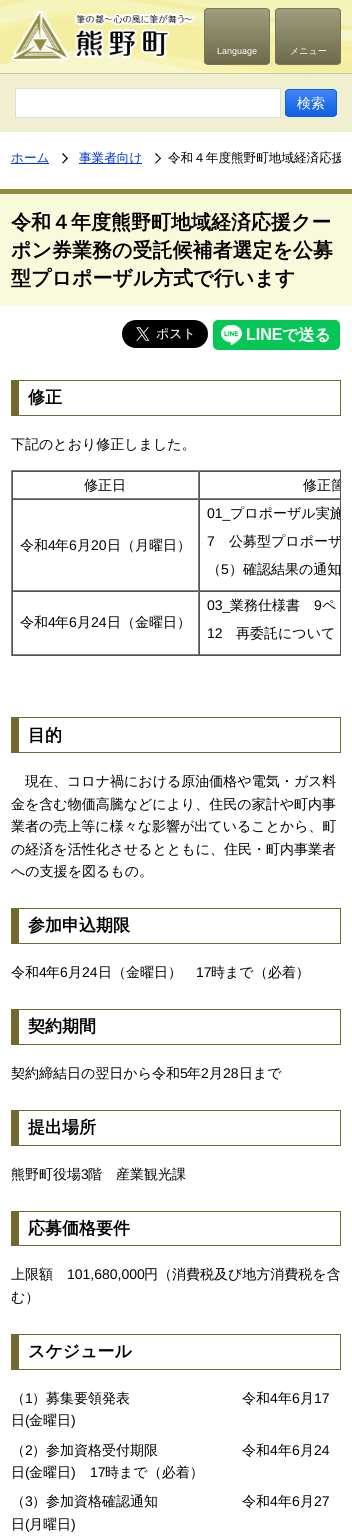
#include <cairo.h>
#include <math.h>
#include <stddef.h>

static cairo_t *c;
static void C(unsigned color){cairo_set_source_rgb(c, (color >> 16) / 255.0, (color >> 8 & 255) / 255.0, (color & 255) / 255.0);}
static void F(const char *family, double size, int italic, int bold){cairo_select_font_face(c, family, italic ? CAIRO_FONT_SLANT_ITALIC : CAIRO_FONT_SLANT_NORMAL,bold ? CAIRO_FONT_WEIGHT_BOLD : CAIRO_FONT_WEIGHT_NORMAL);cairo_set_font_size(c, size);}
static void T(double x, double y, const char *s){cairo_move_to(c, x, y);cairo_show_text(c, s);}
static void R(double x, double y, double w, double h){cairo_rectangle(c, x, y, w, h);cairo_fill(c);}
static void Q(double x, double y, double w, double h, double r){cairo_new_sub_path(c);cairo_arc(c, x + w - r, y + h - r, r, 0, M_PI / 2);cairo_arc(c, x + r, y + h - r, r, M_PI / 2, M_PI);cairo_arc(c, x + r, y + r, r, M_PI, 1.5 * M_PI);cairo_arc(c, x + w - r, y + r, r, 1.5 * M_PI, 2 * M_PI);cairo_close_path(c);}
static void I(const char *path, double x, double y, double w, double h){cairo_surface_t *image = cairo_image_surface_create_from_png(path);cairo_save(c);cairo_set_source_surface(c, image, x, y);cairo_rectangle(c, x, y, w, h);cairo_fill(c);cairo_restore(c);cairo_surface_destroy(image);}
int main(void) {
cairo_surface_t *surface = cairo_image_surface_create(CAIRO_FORMAT_RGB24, 352, 1539);
c = cairo_create(surface);
cairo_font_options_t *options = cairo_font_options_create();
cairo_font_options_set_hint_metrics(options, CAIRO_HINT_METRICS_OFF);
cairo_font_options_set_hint_style(options, CAIRO_HINT_STYLE_NONE);
cairo_set_font_options(c, options);
cairo_set_miter_limit(c, 4);
cairo_pattern_t *gradient;
C(0xffffff);
cairo_paint(c);
C(0xf7f7cd);
R(0,0,352,73);
I("1.png",0,0,352,73);
C(0xc8c69f);
R(0,73,352,1);
I("2.png",11,10,184,51);
cairo_save(c);
Q(204,8,66,57,4);
cairo_clip(c);
gradient = cairo_pattern_create_linear(237,9,237,64);
cairo_pattern_add_color_stop_rgba(gradient,0,0.62,0.616,0.49,1);
cairo_pattern_add_color_stop_rgba(gradient,1,0.424,0.416,0.29,1);
cairo_set_source(c,gradient);
cairo_pattern_destroy(gradient);
R(204,9,66,55);
cairo_restore(c);
Q(204.5,8.5,65,56,3.5);
C(0x7a7853);
cairo_set_line_width(c,1);
cairo_stroke(c);
F("Liberation Sans",9,0,0);
C(0xffffff);
T(217,54,"Language");
cairo_save(c);
Q(275,8,66,57,4);
cairo_clip(c);
gradient = cairo_pattern_create_linear(308,9,308,64);
cairo_pattern_add_color_stop_rgba(gradient,0,0.62,0.616,0.49,1);
cairo_pattern_add_color_stop_rgba(gradient,1,0.424,0.416,0.29,1);
cairo_set_source(c,gradient);
cairo_pattern_destroy(gradient);
R(275,9,66,55);
cairo_restore(c);
Q(275.5,8.5,65,56,3.5);
C(0x7a7853);
cairo_stroke(c);
F("WenQuanYi Zen Hei Medium",9,0,0);
C(0xffffff);
T(290,54,"メニュー");
C(0xf0efd0);
R(0,74,352,58);
C(0xffffff);
cairo_rectangle(c,15.5,88.5,265,29);
cairo_fill_preserve(c);
C(0xdddddd);
cairo_stroke(c);
cairo_save(c);
Q(285,89,52,28,4);
cairo_clip(c);
gradient = cairo_pattern_create_linear(311,90,311,116);
cairo_pattern_add_color_stop_rgba(gradient,0,0.247,0.522,0.957,1);
cairo_pattern_add_color_stop_rgba(gradient,1,0.055,0.376,0.902,1);
cairo_set_source(c,gradient);
cairo_pattern_destroy(gradient);
R(285,90,52,26);
cairo_restore(c);
Q(285.5,89.5,51,27,3.5);
C(0x0e60e6);
cairo_stroke(c);
F("WenQuanYi Zen Hei Medium",14,0,0);
C(0xffffff);
T(297,108,"検索");
C(0x0035d8);
R(11,163,38,1);
F("WenQuanYi Zen Hei Medium",12.6,0,0);
T(11,162,"ホーム");
C(0x000000);
cairo_new_path(c);
cairo_move_to(c,63,153);
cairo_line_to(c,68,158.5);
cairo_line_to(c,67,159);
cairo_line_to(c,62,154);
cairo_close_path(c);
cairo_fill(c);
cairo_new_path(c);
cairo_move_to(c,67,157.5);
cairo_line_to(c,68,158.5);
cairo_line_to(c,63,163.5);
cairo_line_to(c,62,163);
cairo_close_path(c);
cairo_fill(c);
C(0x0035d8);
R(79,163,63,1);
T(79,162,"事業者向け");
C(0x000000);
cairo_new_path(c);
cairo_move_to(c,156,153);
cairo_line_to(c,161,158.5);
cairo_line_to(c,160.5,159);
cairo_line_to(c,155,154);
cairo_close_path(c);
cairo_fill(c);
cairo_new_path(c);
cairo_move_to(c,160.5,157.5);
cairo_line_to(c,161,158.5);
cairo_line_to(c,156,163.5);
cairo_line_to(c,155,163);
cairo_close_path(c);
cairo_fill(c);
cairo_save(c);
cairo_rectangle(c,11,132,330,57);
cairo_clip(c);
T(168,162,"令和４年度熊野町地域経済応援");
cairo_restore(c);
C(0xf9f9db);
R(0,194,352,112);
C(0x918d40);
R(0,189,352,5);
F("WenQuanYi Zen Hei",20,0,1);
C(0x000000);
T(11,229,"令和４年度熊野町地域経済応援クー");
T(11,257,"ポン券業務の受託候補者選定を公募");
T(11,285,"型プロポーザル方式で行います");
I("3.png",122,320,86,28);
I("4.png",213,320,127,30);
C(0x726931);
R(11,380,330,1);
R(340,380,1,36);
R(11,415,330,1);
R(11,380,8,36);
F("WenQuanYi Zen Hei",17,0,1);
C(0x000000);
T(28,403,"修正");
F("WenQuanYi Zen Hei Medium",14,0,0);
T(11,449,"下記のとおり修正しました。");
C(0x808080);
R(11,470,330,1);
C(0x555555);
R(340,470,1,186);
R(11,655,330,1);
C(0x808080);
R(11,470,1,186);
C(0x555555);
R(12,471,328,1);
C(0x808080);
R(198,471,1,28);
R(12,498,328,1);
C(0x555555);
R(12,471,1,28);
C(0x000000);
T(84,490,"修正日");
C(0x555555);
R(199,471,1,28);
cairo_save(c);
cairo_rectangle(c,12,471,328,184);
cairo_clip(c);
C(0x000000);
T(303,490,"修正箇");
cairo_restore(c);
R(12,499,328,1);
C(0x808080);
R(198,499,1,92);
R(12,590,328,1);
C(0x555555);
R(12,499,1,92);
C(0x000000);
T(20,550,"令和");
F("Liberation Sans",14,0,0);
T(48,550,"4");
F("WenQuanYi Zen Hei Medium",14,0,0);
T(55,550,"年");
F("Liberation Sans",14,0,0);
T(69,550,"6");
F("WenQuanYi Zen Hei Medium",14,0,0);
T(77,550,"月");
F("Liberation Sans",14,0,0);
T(91,550,"20");
F("WenQuanYi Zen Hei Medium",14,0,0);
T(107,550,"日（月曜日）");
C(0x555555);
R(199,499,1,92);
F("Liberation Sans",14,0,0);
C(0x000000);
T(207,518,"01_");
cairo_save(c);
cairo_rectangle(c,12,471,328,184);
cairo_clip(c);
F("WenQuanYi Zen Hei Medium",14,0,0);
T(230,518,"プロポーザル実施");
cairo_restore(c);
T(207,546,"7");
cairo_save(c);
cairo_rectangle(c,12,471,328,184);
cairo_clip(c);
F("WenQuanYi Zen Hei Medium",14,0,0);
T(229,546,"公募型プロポーザ");
cairo_restore(c);
F("WenQuanYi Zen Hei Medium",14,0,0);
T(207,574,"（");
F("Liberation Sans",14,0,0);
T(221,574,"5");
F("WenQuanYi Zen Hei Medium",14,0,0);
T(229,574,"）確認結果の通知");
C(0x555555);
R(12,591,328,1);
C(0x808080);
R(198,591,1,64);
R(12,654,328,1);
C(0x555555);
R(12,591,1,64);
C(0x000000);
T(20,627,"令和");
F("Liberation Sans",14,0,0);
T(48,627,"4");
F("WenQuanYi Zen Hei Medium",14,0,0);
T(55,627,"年");
F("Liberation Sans",14,0,0);
T(69,627,"6");
F("WenQuanYi Zen Hei Medium",14,0,0);
T(77,627,"月");
F("Liberation Sans",14,0,0);
T(91,627,"24");
F("WenQuanYi Zen Hei Medium",14,0,0);
T(107,627,"日（金曜日）");
C(0x555555);
R(199,591,1,64);
F("Liberation Sans",14,0,0);
C(0x000000);
T(207,610,"03_");
F("WenQuanYi Zen Hei Medium",14,0,0);
T(230,610,"業務仕様書");
F("Liberation Sans",14,0,0);
T(314,610,"9");
F("WenQuanYi Zen Hei Medium",14,0,0);
T(322,610,"ペ");
F("Liberation Sans",14,0,0);
T(207,638,"12");
F("WenQuanYi Zen Hei Medium",14,0,0);
T(236,638,"再委託について");
C(0x726931);
R(11,717,330,1);
R(340,717,1,36);
R(11,752,330,1);
R(11,717,8,36);
F("WenQuanYi Zen Hei",17,0,1);
C(0x000000);
T(28,741,"目的");
F("WenQuanYi Zen Hei Medium",14,0,0);
T(25,786,"現在、コロナ禍における原油価格や電気・ガス料");
T(11,809,"金を含む物価高騰などにより、住民の家計や町内事");
T(11,831,"業者の売上等に様々な影響が出ていることから、町");
T(11,854,"の経済を活性化させるとともに、住民・町内事業者");
T(11,876,"への支援を図るもの。");
C(0x726931);
R(11,908,330,1);
R(340,908,1,36);
R(11,943,330,1);
R(11,908,8,36);
F("WenQuanYi Zen Hei",17,0,1);
C(0x000000);
T(28,931,"参加申込期限");
F("WenQuanYi Zen Hei Medium",14,0,0);
T(11,977,"令和");
F("Liberation Sans",14,0,0);
T(39,977,"4");
F("WenQuanYi Zen Hei Medium",14,0,0);
T(46,977,"年");
F("Liberation Sans",14,0,0);
T(60,977,"6");
F("WenQuanYi Zen Hei Medium",14,0,0);
T(68,977,"月");
F("Liberation Sans",14,0,0);
T(82,977,"24");
F("WenQuanYi Zen Hei Medium",14,0,0);
T(98,977,"日（金曜日）");
F("Liberation Sans",14,0,0);
T(196,977,"17");
F("WenQuanYi Zen Hei Medium",14,0,0);
T(211,977,"時まで（必着）");
C(0x726931);
R(11,1009,330,1);
R(340,1009,1,36);
R(11,1044,330,1);
R(11,1009,8,36);
F("WenQuanYi Zen Hei",17,0,1);
C(0x000000);
T(28,1032,"契約期間");
F("WenQuanYi Zen Hei Medium",14,0,0);
T(11,1078,"契約締結日の翌日から令和");
F("Liberation Sans",14,0,0);
T(180,1078,"5");
F("WenQuanYi Zen Hei Medium",14,0,0);
T(187,1078,"年");
F("Liberation Sans",14,0,0);
T(201,1078,"2");
F("WenQuanYi Zen Hei Medium",14,0,0);
T(209,1078,"月");
F("Liberation Sans",14,0,0);
T(223,1078,"28");
F("WenQuanYi Zen Hei Medium",14,0,0);
T(239,1078,"日まで");
C(0x726931);
R(11,1110,330,1);
R(340,1110,1,36);
R(11,1145,330,1);
R(11,1110,8,36);
F("WenQuanYi Zen Hei",17,0,1);
C(0x000000);
T(28,1133,"提出場所");
F("WenQuanYi Zen Hei Medium",14,0,0);
T(11,1179,"熊野町役場");
F("Liberation Sans",14,0,0);
T(81,1179,"3");
F("WenQuanYi Zen Hei Medium",14,0,0);
T(88,1179,"階　産業観光課");
C(0x726931);
R(11,1211,330,1);
R(340,1211,1,35);
R(11,1245,330,1);
R(11,1211,8,35);
F("WenQuanYi Zen Hei",17,0,1);
C(0x000000);
T(28,1234,"応募価格要件");
F("WenQuanYi Zen Hei Medium",14,0,0);
T(11,1279,"上限額");
F("Liberation Sans",14,0,0);
T(67,1279,"101,680,000");
F("WenQuanYi Zen Hei Medium",14,0,0);
T(144,1279,"円（消費税及び地方消費税を含");
T(11,1302,"む）");
C(0x726931);
R(11,1334,330,1);
R(340,1334,1,36);
R(11,1369,330,1);
R(11,1334,8,36);
F("WenQuanYi Zen Hei",17,0,1);
C(0x000000);
T(28,1357,"スケジュール");
F("WenQuanYi Zen Hei Medium",14,0,0);
T(11,1403,"（");
F("Liberation Sans",14,0,0);
T(25,1403,"1");
F("WenQuanYi Zen Hei Medium",14,0,0);
T(32,1403,"）募集要領発表　　　　　　　　令和");
F("Liberation Sans",14,0,0);
T(270,1403,"4");
F("WenQuanYi Zen Hei Medium",14,0,0);
T(278,1403,"年");
F("Liberation Sans",14,0,0);
T(292,1403,"6");
F("WenQuanYi Zen Hei Medium",14,0,0);
T(300,1403,"月");
F("Liberation Sans",14,0,0);
T(314,1403,"17");
F("WenQuanYi Zen Hei Medium",14,0,0);
T(11,1425,"日");
F("Liberation Sans",14,0,0);
T(25,1425,"(");
F("WenQuanYi Zen Hei Medium",14,0,0);
T(29,1425,"金曜日");
F("Liberation Sans",14,0,0);
T(71,1425,")");
F("WenQuanYi Zen Hei Medium",14,0,0);
T(11,1455,"（");
F("Liberation Sans",14,0,0);
T(25,1455,"2");
F("WenQuanYi Zen Hei Medium",14,0,0);
T(32,1455,"）参加資格受付期限　　　　　　令和");
F("Liberation Sans",14,0,0);
T(270,1455,"4");
F("WenQuanYi Zen Hei Medium",14,0,0);
T(278,1455,"年");
F("Liberation Sans",14,0,0);
T(292,1455,"6");
F("WenQuanYi Zen Hei Medium",14,0,0);
T(300,1455,"月");
F("Liberation Sans",14,0,0);
T(314,1455,"24");
F("WenQuanYi Zen Hei Medium",14,0,0);
T(11,1477,"日");
F("Liberation Sans",14,0,0);
T(25,1477,"(");
F("WenQuanYi Zen Hei Medium",14,0,0);
T(29,1477,"金曜日");
F("Liberation Sans",14,0,0);
T(71,1477,")");
T(90,1477,"17");
F("WenQuanYi Zen Hei Medium",14,0,0);
T(105,1477,"時まで（必着）");
T(11,1506,"（");
F("Liberation Sans",14,0,0);
T(25,1506,"3");
F("WenQuanYi Zen Hei Medium",14,0,0);
T(32,1506,"）参加資格確認通知　　　　　　令和");
F("Liberation Sans",14,0,0);
T(270,1506,"4");
F("WenQuanYi Zen Hei Medium",14,0,0);
T(278,1506,"年");
F("Liberation Sans",14,0,0);
T(292,1506,"6");
F("WenQuanYi Zen Hei Medium",14,0,0);
T(300,1506,"月");
F("Liberation Sans",14,0,0);
T(314,1506,"27");
F("WenQuanYi Zen Hei Medium",14,0,0);
T(11,1529,"日");
F("Liberation Sans",14,0,0);
T(25,1529,"(");
F("WenQuanYi Zen Hei Medium",14,0,0);
T(29,1529,"月曜日");
F("Liberation Sans",14,0,0);
T(71,1529,")");
cairo_surface_write_to_png(surface, "o.png");
cairo_font_options_destroy(options);
cairo_destroy(c);
cairo_surface_destroy(surface);
return 0;
}
